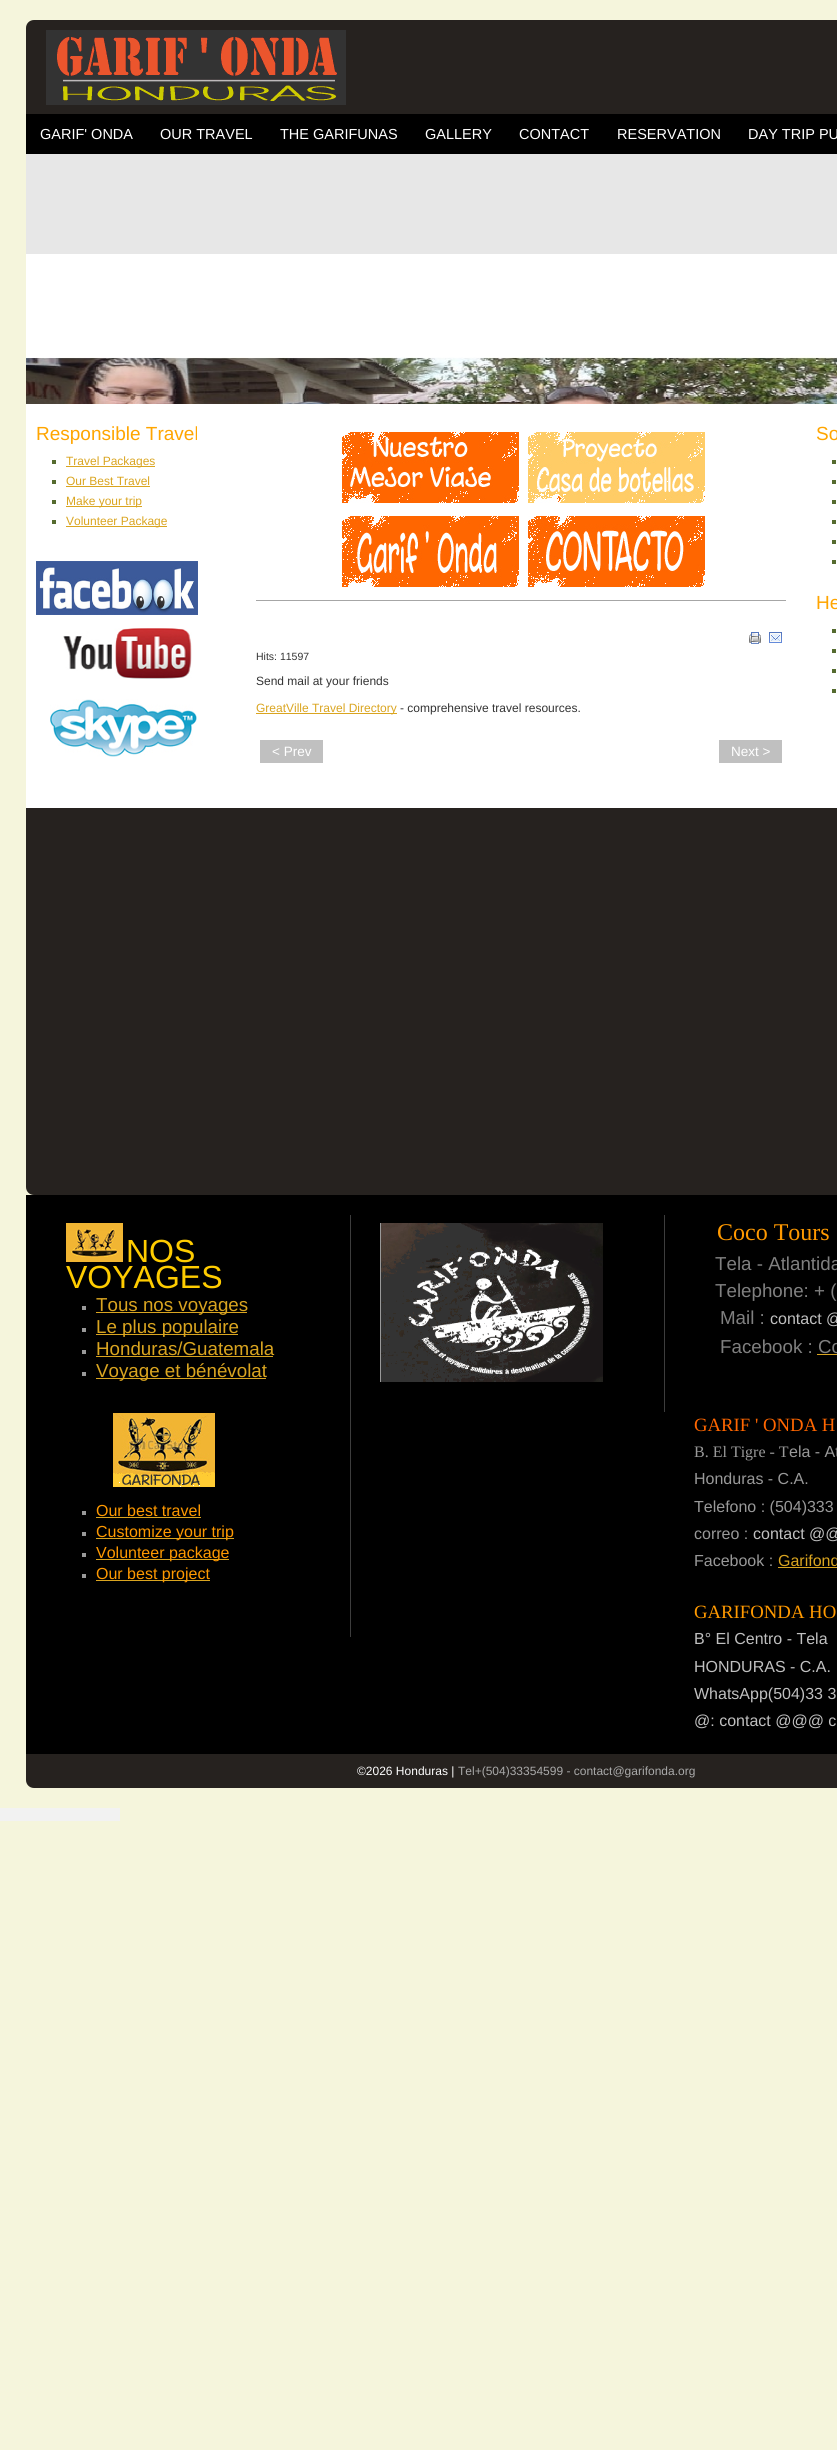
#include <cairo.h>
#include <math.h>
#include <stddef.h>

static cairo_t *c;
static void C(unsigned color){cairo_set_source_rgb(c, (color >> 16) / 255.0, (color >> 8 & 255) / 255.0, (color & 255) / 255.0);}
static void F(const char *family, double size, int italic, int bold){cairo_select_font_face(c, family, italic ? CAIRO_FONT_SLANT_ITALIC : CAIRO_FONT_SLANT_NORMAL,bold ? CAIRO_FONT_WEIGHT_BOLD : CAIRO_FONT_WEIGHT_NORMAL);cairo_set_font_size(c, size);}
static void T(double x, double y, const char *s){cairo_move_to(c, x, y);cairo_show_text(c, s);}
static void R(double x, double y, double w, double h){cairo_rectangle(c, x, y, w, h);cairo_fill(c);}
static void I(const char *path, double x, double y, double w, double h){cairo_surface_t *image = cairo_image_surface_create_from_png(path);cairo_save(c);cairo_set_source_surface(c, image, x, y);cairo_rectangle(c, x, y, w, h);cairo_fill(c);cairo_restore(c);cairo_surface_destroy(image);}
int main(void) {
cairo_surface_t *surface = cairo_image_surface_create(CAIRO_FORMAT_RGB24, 837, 2450);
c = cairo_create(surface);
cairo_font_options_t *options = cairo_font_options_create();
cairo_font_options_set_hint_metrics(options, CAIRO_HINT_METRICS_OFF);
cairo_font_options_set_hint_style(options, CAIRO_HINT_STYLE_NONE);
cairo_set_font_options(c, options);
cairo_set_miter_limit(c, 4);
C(0xf5f5dc);
cairo_paint(c);
C(0x26221f);
cairo_new_path(c);
cairo_move_to(c,34,20);
cairo_line_to(c,837,20);
cairo_curve_to(c,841.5,20,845,23.5,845,28);
cairo_line_to(c,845,115);
cairo_line_to(c,26,115);
cairo_line_to(c,26,28);
cairo_curve_to(c,26,23.5,29.5,20,34,20);
cairo_close_path(c);
cairo_fill(c);
I("1.png",46,30,300,75);
C(0x000000);
R(26,114,811,40);
F("Liberation Sans",14.5,0,0);
C(0xffffff);
T(40,139,"GARIF' ONDA");
T(160,139,"OUR TRAVEL");
T(280,139,"THE GARIFUNAS");
T(425,139,"GALLERY");
T(519,139,"CONTACT");
T(617,139,"RESERVATION");
T(748,139,"DAY TRIP PU");
C(0xe7e7e7);
R(26,154,811,100);
I("2.png",26,254,811,150);
C(0xffffff);
R(26,404,811,404);
F("Liberation Sans",19,0,0);
C(0xffa500);
T(36,440,"Responsible Travel");
C(0x556b2f);
R(52,460,4,4);
C(0xdaa520);
R(66,466,89,1);
F("Liberation Sans",12,0,0);
T(66,465,"Travel Packages");
C(0x556b2f);
R(52,480,4,4);
C(0xdaa520);
T(66,485,"Our Best Travel");
R(66,486,84,1);
C(0x556b2f);
R(52,500,4,4);
C(0xdaa520);
R(66,506,76,1);
T(66,505,"Make your trip");
C(0x556b2f);
R(52,520,4,4);
C(0xdaa520);
R(66,526,101,1);
T(66,525,"Volunteer Package");
I("3.png",36,561,162,54);
I("4.png",63,628,129,51);
I("5.png",50,699,147,58);
F("Liberation Sans",19,0,0);
C(0xffa500);
T(816,440,"So");
C(0x556b2f);
R(832,460,4,4);
R(832,480,4,4);
R(832,500,4,4);
R(832,520,4,4);
R(832,540,4,4);
R(832,560,4,4);
C(0xffa500);
T(816,609,"He");
C(0x556b2f);
R(832,629,4,4);
R(832,649,4,4);
R(832,669,4,4);
R(832,689,4,4);
I("6.png",342,432,177,71);
I("7.png",528,432,177,71);
I("8.png",342,516,177,71);
I("9.png",528,516,177,71);
C(0xa6a6a6);
R(256,600,530,1);
I("10.png",749,632,12,12);
I("11.png",769,632,13,11);
F("Liberation Sans",10.5,0,0);
C(0x333333);
T(256,660,"Hits: 11597");
F("Liberation Sans",12,0,0);
T(256,685,"Send mail at your friends");
C(0xdaa520);
R(256,713,141,1);
T(256,712,"GreatVille Travel Directory");
C(0x333333);
T(400,712,"- comprehensive travel resources.");
C(0xc0c0c0);
R(260,740,63,23);
F("Liberation Sans",13.5,0,0);
C(0xffffff);
T(272,756,"< Prev");
C(0xc0c0c0);
R(719,740,63,23);
C(0xffffff);
T(731,756,"Next >");
C(0x26221f);
cairo_new_path(c);
cairo_move_to(c,26,808);
cairo_line_to(c,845,808);
cairo_line_to(c,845,1187);
cairo_curve_to(c,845,1191.5,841.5,1195,837,1195);
cairo_line_to(c,34,1195);
cairo_curve_to(c,29.5,1195,26,1191.5,26,1187);
cairo_close_path(c);
cairo_fill(c);
C(0x000000);
R(26,1195,811,559);
C(0x3d3d3d);
R(350,1215,1,422);
I("12.png",66,1223,57,39);
F("Liberation Sans",32,0,0);
C(0xffcc00);
T(126,1262,"NOS");
T(66,1288,"VOYAGES");
C(0x999999);
R(82,1306,4,4);
C(0xdaa520);
R(96,1312,151,1);
F("Liberation Sans",18.75,0,0);
T(96,1311,"Tous nos voyages");
C(0x999999);
R(82,1328,4,4);
C(0xdaa520);
R(96,1334,142,1);
T(96,1333,"Le plus populaire");
C(0x999999);
R(82,1350,4,4);
C(0xdaa520);
T(96,1355,"Honduras/Guatemala");
R(96,1356,177,1);
C(0x999999);
R(82,1372,4,4);
C(0xdaa520);
R(96,1378,170,1);
T(96,1377,"Voyage et bénévolat");
I("13.png",113,1413,102,74);
C(0x999999);
R(82,1511,4,4);
F("Liberation Sans",16,0,0);
C(0xff9900);
T(96,1516,"Our best travel");
C(0xdaa520);
R(96,1517,105,1);
C(0x999999);
R(82,1532,4,4);
C(0xdaa520);
R(96,1538,138,1);
C(0xff9900);
T(96,1537,"Customize your trip");
C(0x999999);
R(82,1553,4,4);
C(0xdaa520);
R(96,1559,133,1);
C(0xff9900);
T(96,1558,"Volunteer package");
C(0x999999);
R(82,1574,4,4);
C(0xdaa520);
R(96,1580,114,1);
C(0xff9900);
T(96,1579,"Our best project");
C(0x3d3d3d);
R(664,1215,1,197);
I("14.png",380,1223,223,159);
F("Liberation Serif",24,0,0);
C(0xff9900);
T(717,1240,"Coco Tours");
F("Liberation Sans",18.75,0,0);
C(0x808080);
T(715,1270,"Tela - Atlantida");
T(715,1297,"Telephone: + (");
T(720,1324,"Mail :");
F("Liberation Sans",16,0,0);
C(0xc0c0c0);
T(770,1324,"contact @");
F("Liberation Sans",18.75,0,0);
C(0x808080);
T(720,1353,"Facebook : Co");
C(0xdaa520);
R(817,1354,20,1);
F("Liberation Serif",18.75,0,0);
C(0xff6600);
T(694,1431,"GARIF ' ONDA H");
F("Liberation Serif",16,0,0);
C(0x999999);
T(694,1457,"B. El Tigre - T");
F("Liberation Sans",16,0,0);
T(789,1457,"ela - At");
T(694,1484,"Honduras - C.A.");
T(694,1512,"Telefono : (504)333");
T(694,1539,"correo :");
C(0xc0c0c0);
T(753,1539,"contact @@");
C(0x999999);
T(694,1566,"Facebook :");
C(0xdaa520);
T(778,1566,"Garifond");
R(778,1567,59,1);
F("Liberation Serif",18.75,0,0);
C(0xff9900);
T(694,1618,"GARIFONDA HO");
F("Liberation Sans",16,0,0);
C(0xc0c0c0);
T(694,1644,"B° El Centro - Tela");
T(694,1672,"HONDURAS - C.A.");
T(694,1699,"WhatsApp(504)33 3");
T(694,1726,"@: contact @@@ c");
C(0x26221f);
cairo_new_path(c);
cairo_move_to(c,26,1754);
cairo_line_to(c,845,1754);
cairo_line_to(c,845,1780);
cairo_curve_to(c,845,1784.5,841.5,1788,837,1788);
cairo_line_to(c,34,1788);
cairo_curve_to(c,29.5,1788,26,1784.5,26,1780);
cairo_close_path(c);
cairo_fill(c);
F("Liberation Sans",12,0,0);
C(0xffffff);
T(357,1775,"©2026 Honduras |");
C(0xa9a9a9);
T(458,1775,"Tel+(504)33354599 - contact@garifonda.org");
C(0xf2f2f2);
R(0,1808,120,13);
cairo_surface_write_to_png(surface, "o.png");
cairo_font_options_destroy(options);
cairo_destroy(c);
cairo_surface_destroy(surface);
return 0;
}
